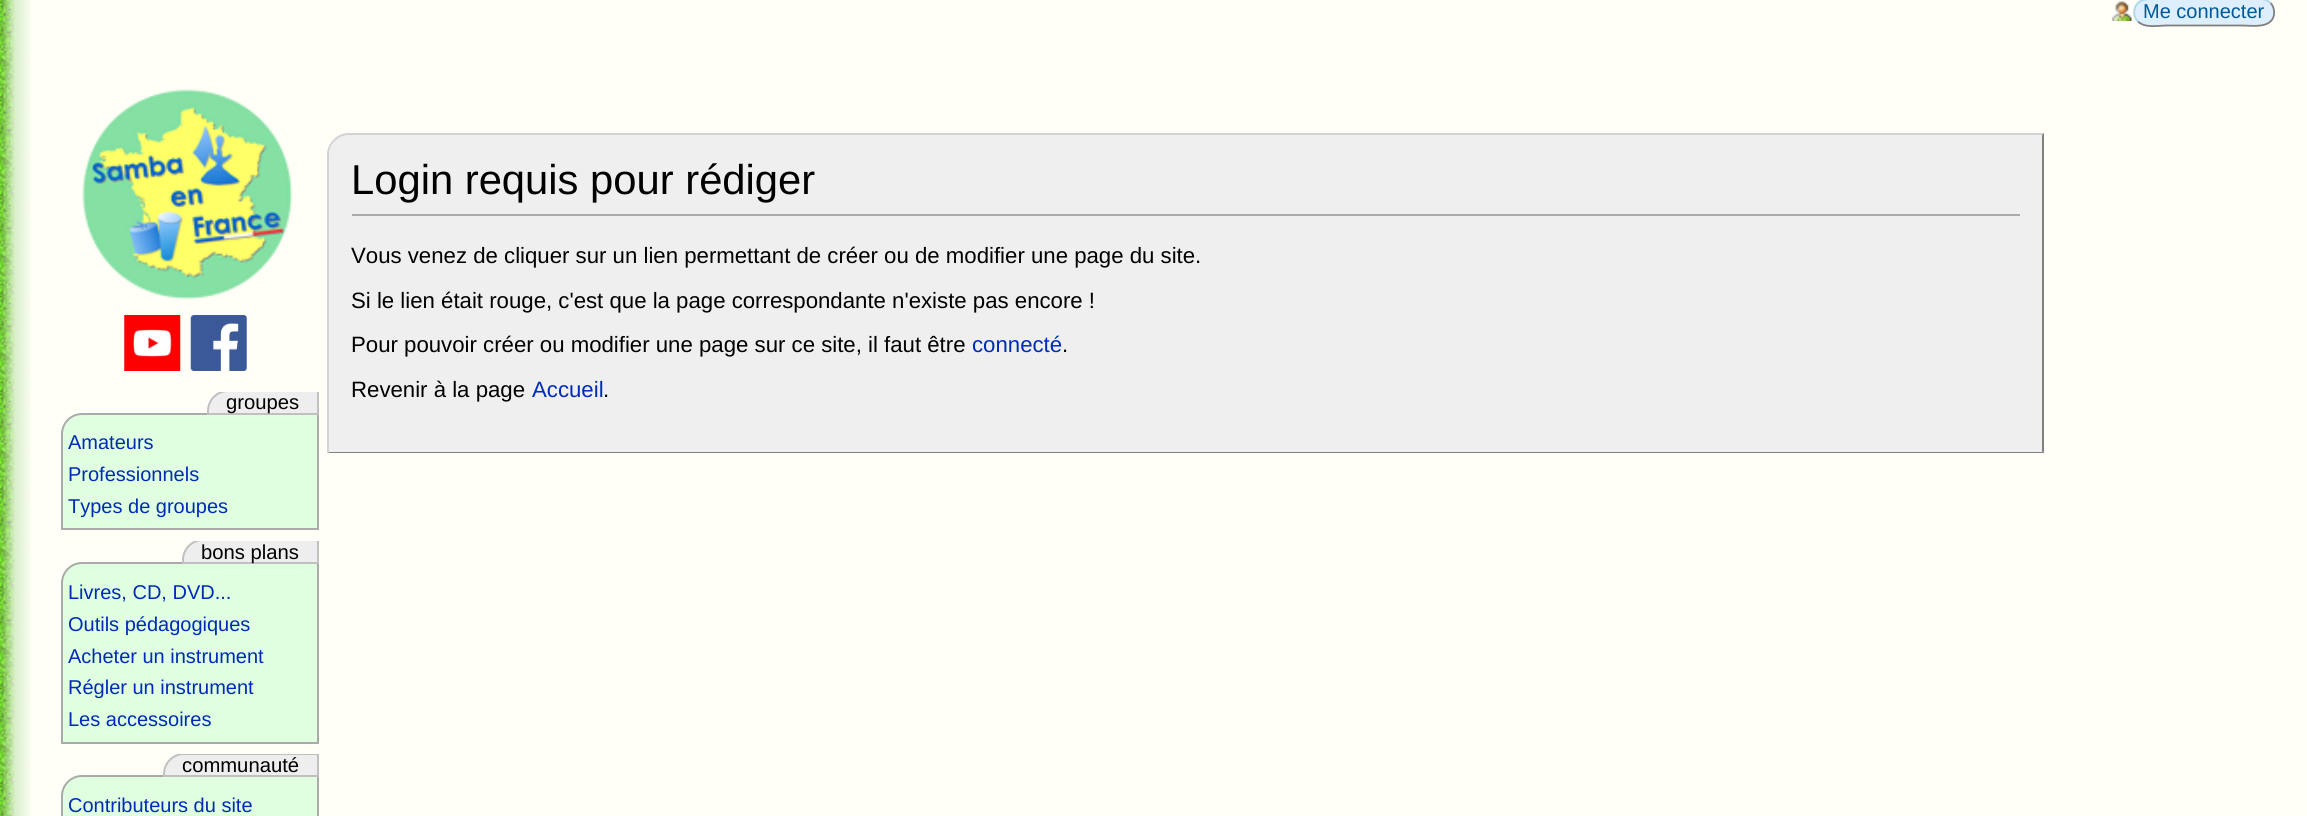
#include <cairo.h>
#include <math.h>
#include <stddef.h>

static cairo_t *c;
static void C(unsigned color){cairo_set_source_rgb(c, (color >> 16) / 255.0, (color >> 8 & 255) / 255.0, (color & 255) / 255.0);}
static void F(const char *family, double size, int italic, int bold){cairo_select_font_face(c, family, italic ? CAIRO_FONT_SLANT_ITALIC : CAIRO_FONT_SLANT_NORMAL,bold ? CAIRO_FONT_WEIGHT_BOLD : CAIRO_FONT_WEIGHT_NORMAL);cairo_set_font_size(c, size);}
static void T(double x, double y, const char *s){cairo_move_to(c, x, y);cairo_show_text(c, s);}
static void R(double x, double y, double w, double h){cairo_rectangle(c, x, y, w, h);cairo_fill(c);}
static void Q(double x, double y, double w, double h, double r){cairo_new_sub_path(c);cairo_arc(c, x + w - r, y + h - r, r, 0, M_PI / 2);cairo_arc(c, x + r, y + h - r, r, M_PI / 2, M_PI);cairo_arc(c, x + r, y + r, r, M_PI, 1.5 * M_PI);cairo_arc(c, x + w - r, y + r, r, 1.5 * M_PI, 2 * M_PI);cairo_close_path(c);}
static void I(const char *path, double x, double y, double w, double h){cairo_surface_t *image = cairo_image_surface_create_from_png(path);cairo_save(c);cairo_set_source_surface(c, image, x, y);cairo_rectangle(c, x, y, w, h);cairo_fill(c);cairo_restore(c);cairo_surface_destroy(image);}
int main(void) {
cairo_surface_t *surface = cairo_image_surface_create(CAIRO_FORMAT_RGB24, 2307, 816);
c = cairo_create(surface);
cairo_font_options_t *options = cairo_font_options_create();
cairo_font_options_set_hint_metrics(options, CAIRO_HINT_METRICS_OFF);
cairo_font_options_set_hint_style(options, CAIRO_HINT_STYLE_NONE);
cairo_set_font_options(c, options);
cairo_set_miter_limit(c, 4);
C(0xfffff8);
cairo_paint(c);
I("1.png",0,0,31,816);
I("2.png",2111,1,21,20);
C(0xddeeff);
Q(2133,-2,142,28,14);
cairo_fill(c);
cairo_new_path(c);
cairo_move_to(c,2270.5,3);
cairo_curve_to(c,2273.5,6,2274.5,10.5,2274,15);
cairo_curve_to(c,2271,29,2252,25.5,2242,25.5);
cairo_line_to(c,2166,25.5);
cairo_curve_to(c,2159,25.5,2145,28.5,2138,21.5);
C(0x808080);
cairo_set_line_width(c,1.8);
cairo_stroke(c);
cairo_new_path(c);
cairo_move_to(c,2138,21.5);
cairo_curve_to(c,2135,18.5,2133.5,14,2134.5,9.5);
cairo_curve_to(c,2137.5,-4.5,2156.5,-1,2166,-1);
cairo_line_to(c,2242,-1);
cairo_curve_to(c,2249,-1,2263.5,-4,2270.5,3);
C(0xadd8e6);
cairo_stroke(c);
F("Liberation Sans",20,0,0);
C(0x005896);
T(2143,18,"Me connecter");
I("3.png",82,89,211,211);
I("4.png",124,315,57,56);
I("5.png",190,315,57,56);
C(0xe0ffe0);
cairo_new_path(c);
cairo_move_to(c,82,414);
cairo_line_to(c,318,414);
cairo_line_to(c,318,529);
cairo_line_to(c,62,529);
cairo_line_to(c,62,434);
cairo_curve_to(c,62,423,71,414,82,414);
cairo_close_path(c);
cairo_fill_preserve(c);
C(0xaaaaaa);
cairo_set_line_width(c,2);
cairo_stroke(c);
cairo_save(c);
cairo_rectangle(c,61,392,258,138);
cairo_clip(c);
C(0xeeeeee);
cairo_new_path(c);
cairo_move_to(c,228,391);
cairo_line_to(c,318,391);
cairo_line_to(c,318,414);
cairo_line_to(c,208,414);
cairo_line_to(c,208,411);
cairo_curve_to(c,208,400,217,391,228,391);
cairo_close_path(c);
cairo_fill_preserve(c);
C(0xc0c0c0);
cairo_stroke(c);
cairo_restore(c);
F("Liberation Sans",20.25,0,0);
C(0x000000);
T(226,409,"groupes");
F("Liberation Sans",20,0,0);
C(0x002bb8);
T(68,449,"Amateurs");
T(68,481,"Professionnels");
T(68,513,"Types de groupes");
C(0xe0ffe0);
cairo_new_path(c);
cairo_move_to(c,82,563);
cairo_line_to(c,318,563);
cairo_line_to(c,318,743);
cairo_line_to(c,62,743);
cairo_line_to(c,62,583);
cairo_curve_to(c,62,572,71,563,82,563);
cairo_close_path(c);
cairo_fill_preserve(c);
C(0xaaaaaa);
cairo_stroke(c);
cairo_save(c);
cairo_rectangle(c,61,541,258,203);
cairo_clip(c);
C(0xeeeeee);
cairo_new_path(c);
cairo_move_to(c,203,540);
cairo_line_to(c,318,540);
cairo_line_to(c,318,563);
cairo_line_to(c,183,563);
cairo_line_to(c,183,560);
cairo_curve_to(c,183,549,192,540,203,540);
cairo_close_path(c);
cairo_fill_preserve(c);
C(0xc0c0c0);
cairo_stroke(c);
cairo_restore(c);
F("Liberation Sans",20.25,0,0);
C(0x000000);
T(201,559,"bons plans");
F("Liberation Sans",20,0,0);
C(0x002bb8);
T(68,599,"Livres, CD, DVD...");
T(68,631,"Outils pédagogiques");
T(68,663,"Acheter un instrument");
T(68,694,"Régler un instrument");
T(68,726,"Les accessoires");
C(0xe0ffe0);
cairo_new_path(c);
cairo_move_to(c,82,776);
cairo_line_to(c,318,776);
cairo_line_to(c,318,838);
cairo_line_to(c,62,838);
cairo_line_to(c,62,796);
cairo_curve_to(c,62,785,71,776,82,776);
cairo_close_path(c);
cairo_fill_preserve(c);
C(0xaaaaaa);
cairo_stroke(c);
cairo_save(c);
cairo_rectangle(c,61,754,258,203);
cairo_clip(c);
C(0xeeeeee);
cairo_new_path(c);
cairo_move_to(c,184,754);
cairo_line_to(c,318,754);
cairo_line_to(c,318,776);
cairo_line_to(c,164,776);
cairo_line_to(c,164,774);
cairo_curve_to(c,164,763,173,754,184,754);
cairo_close_path(c);
cairo_fill_preserve(c);
C(0xc0c0c0);
cairo_stroke(c);
cairo_restore(c);
F("Liberation Sans",20.25,0,0);
C(0x000000);
T(182,772,"communauté");
F("Liberation Sans",20,0,0);
C(0x002bb8);
T(68,812,"Contributeurs du site");
C(0xefefef);
cairo_new_path(c);
cairo_move_to(c,350,133);
cairo_line_to(c,2044,133);
cairo_line_to(c,2044,453);
cairo_line_to(c,327,453);
cairo_line_to(c,327,156);
cairo_curve_to(c,327,143.5,337.5,133,350,133);
cairo_close_path(c);
cairo_fill(c);
C(0xd3d3d3);
cairo_new_path(c);
cairo_move_to(c,349,133);
cairo_curve_to(c,343,133,338,135,334,139);
cairo_line_to(c,335,141);
cairo_curve_to(c,339,137,344,135,349,135);
cairo_line_to(c,2042,135);
cairo_line_to(c,2044,133);
cairo_close_path(c);
cairo_fill(c);
C(0x808080);
cairo_new_path(c);
cairo_move_to(c,2044,133);
cairo_line_to(c,2042,135);
cairo_line_to(c,2042,451);
cairo_line_to(c,2044,453);
cairo_close_path(c);
cairo_fill(c);
cairo_new_path(c);
cairo_move_to(c,2044,453);
cairo_line_to(c,328,453);
cairo_line_to(c,329,452);
cairo_line_to(c,2042,452);
cairo_line_to(c,2042,451);
cairo_close_path(c);
cairo_fill(c);
C(0xd3d3d3);
cairo_new_path(c);
cairo_move_to(c,327,152);
cairo_curve_to(c,328,147,330,143,334,139);
cairo_line_to(c,335,141);
cairo_curve_to(c,331,144,329,149,329,155);
cairo_line_to(c,329,452);
cairo_line_to(c,327,453);
cairo_close_path(c);
cairo_fill(c);
C(0xaaaaaa);
R(352,214,1668,2);
F("Liberation Sans",41.75,0,0);
C(0x000000);
T(351,194,"Login requis pour rédiger");
F("Liberation Sans",22.2,0,0);
T(351,263,"Vous venez de cliquer sur un lien permettant de créer ou de modifier une page du site.");
T(351,308,"Si le lien était rouge, c'est que la page correspondante n'existe pas encore !");
T(351,352,"Pour pouvoir créer ou modifier une page sur ce site, il faut être");
C(0x002bb8);
T(972,352,"connecté");
C(0x000000);
T(1062,352,".");
T(351,397,"Revenir à la page");
C(0x002bb8);
T(532,397,"Accueil");
C(0x000000);
T(603,397,".");
cairo_surface_write_to_png(surface, "o.png");
cairo_font_options_destroy(options);
cairo_destroy(c);
cairo_surface_destroy(surface);
return 0;
}
